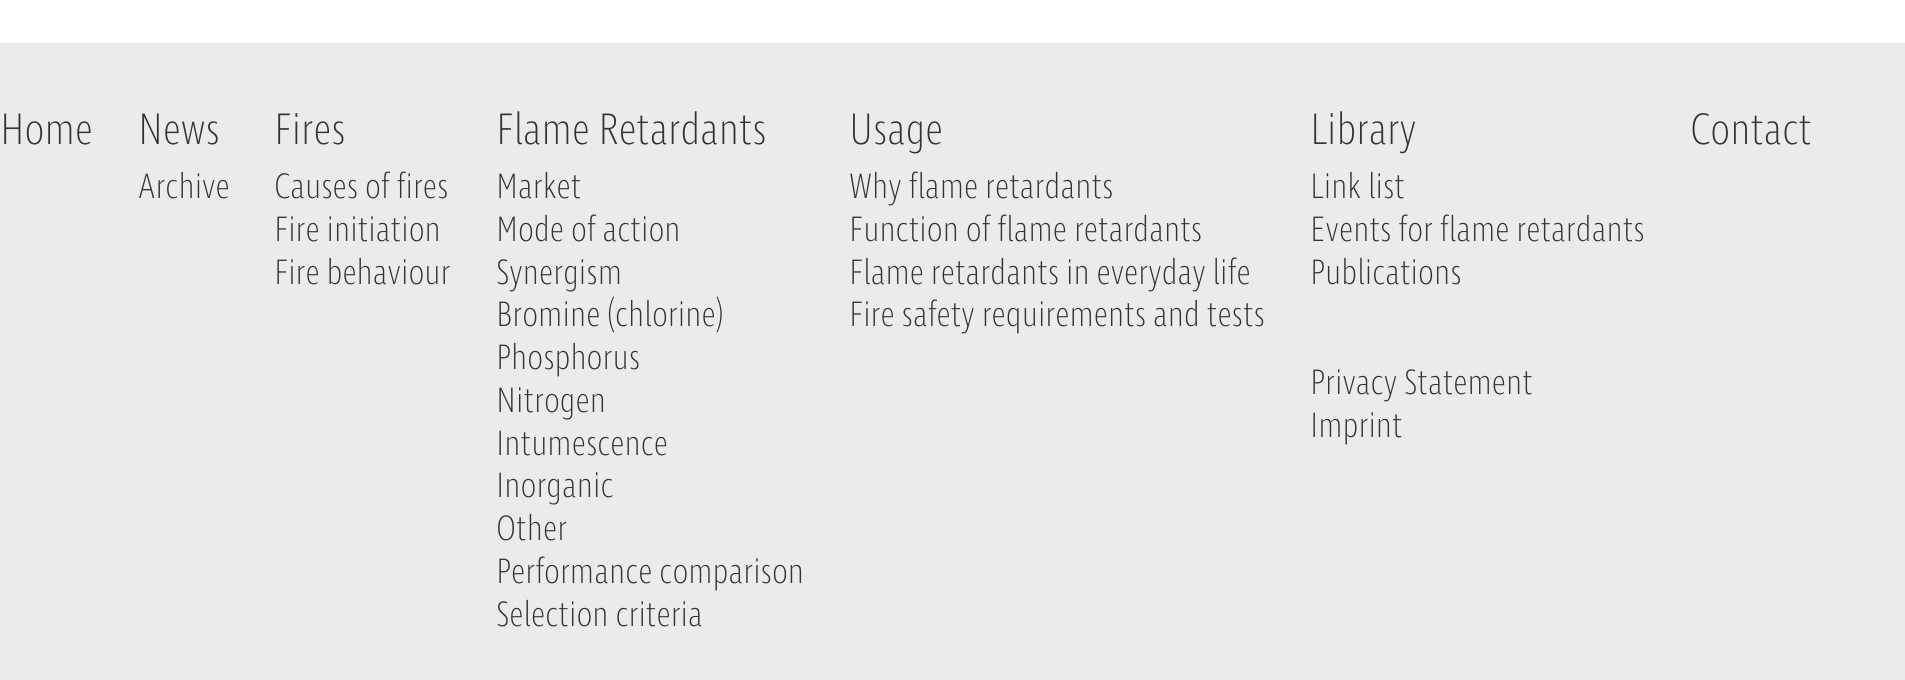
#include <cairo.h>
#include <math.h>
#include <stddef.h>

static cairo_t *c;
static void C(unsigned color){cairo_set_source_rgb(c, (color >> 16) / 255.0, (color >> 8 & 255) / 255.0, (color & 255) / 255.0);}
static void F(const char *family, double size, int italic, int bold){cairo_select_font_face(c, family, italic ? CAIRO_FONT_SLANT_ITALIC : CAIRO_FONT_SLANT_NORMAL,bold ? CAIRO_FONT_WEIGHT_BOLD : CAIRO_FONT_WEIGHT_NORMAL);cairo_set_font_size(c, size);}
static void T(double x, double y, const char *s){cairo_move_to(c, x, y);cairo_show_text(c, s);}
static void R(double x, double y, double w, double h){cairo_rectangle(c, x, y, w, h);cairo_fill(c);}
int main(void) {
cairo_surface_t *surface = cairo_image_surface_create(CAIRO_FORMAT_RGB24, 1905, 680);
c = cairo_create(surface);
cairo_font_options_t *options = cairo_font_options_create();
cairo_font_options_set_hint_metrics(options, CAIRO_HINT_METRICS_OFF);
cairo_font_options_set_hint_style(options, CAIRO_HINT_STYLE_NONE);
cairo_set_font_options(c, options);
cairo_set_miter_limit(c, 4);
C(0xffffff);
cairo_paint(c);
C(0xebebeb);
R(0,43,1905,637);
F("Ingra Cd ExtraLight",45,0,0);
C(0x333333);
T(0,144,"Home");
T(138,144,"News");
F("Ingra Cd ExtraLight",36,0,0);
T(138,198,"Archive");
F("Ingra Cd ExtraLight",45,0,0);
T(274,144,"Fires");
F("Ingra Cd ExtraLight",36,0,0);
T(274,198,"Causes of fires");
T(274,241,"Fire initiation");
T(274,284,"Fire behaviour");
F("Ingra Cd ExtraLight",45,0,0);
T(496,144,"Flame Retardants");
F("Ingra Cd ExtraLight",36,0,0);
T(496,198,"Market");
T(496,241,"Mode of action");
T(496,284,"Synergism");
T(496,326,"Bromine (chlorine)");
T(496,369,"Phosphorus");
T(496,412,"Nitrogen");
T(496,455,"Intumescence");
T(496,497,"Inorganic");
T(496,540,"Other");
T(496,583,"Performance comparison");
T(496,626,"Selection criteria");
F("Ingra Cd ExtraLight",45,0,0);
T(849,144,"Usage");
F("Ingra Cd ExtraLight",36,0,0);
T(849,198,"Why flame retardants");
T(849,241,"Function of flame retardants");
T(849,284,"Flame retardants in everyday life");
T(849,326,"Fire safety requirements and tests");
F("Ingra Cd ExtraLight",45,0,0);
T(1310,144,"Library");
F("Ingra Cd ExtraLight",36,0,0);
T(1310,198,"Link list");
T(1310,241,"Events for flame retardants");
T(1310,284,"Publications");
F("Ingra Cd ExtraLight",45,0,0);
T(1690,144,"Contact");
F("Ingra Cd ExtraLight",36,0,0);
T(1310,394,"Privacy Statement");
T(1310,437,"Imprint");
cairo_surface_write_to_png(surface, "o.png");
cairo_font_options_destroy(options);
cairo_destroy(c);
cairo_surface_destroy(surface);
return 0;
}
